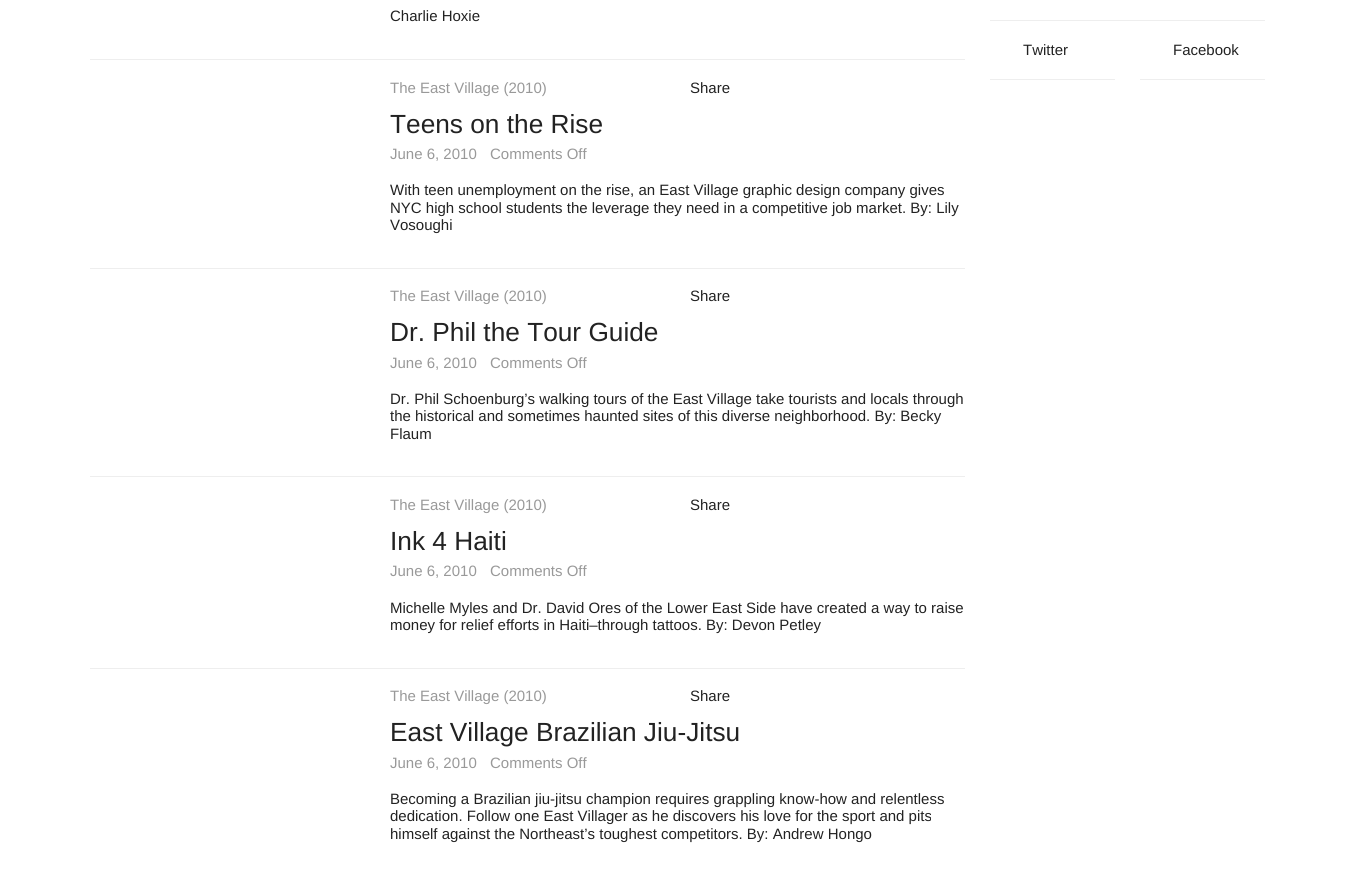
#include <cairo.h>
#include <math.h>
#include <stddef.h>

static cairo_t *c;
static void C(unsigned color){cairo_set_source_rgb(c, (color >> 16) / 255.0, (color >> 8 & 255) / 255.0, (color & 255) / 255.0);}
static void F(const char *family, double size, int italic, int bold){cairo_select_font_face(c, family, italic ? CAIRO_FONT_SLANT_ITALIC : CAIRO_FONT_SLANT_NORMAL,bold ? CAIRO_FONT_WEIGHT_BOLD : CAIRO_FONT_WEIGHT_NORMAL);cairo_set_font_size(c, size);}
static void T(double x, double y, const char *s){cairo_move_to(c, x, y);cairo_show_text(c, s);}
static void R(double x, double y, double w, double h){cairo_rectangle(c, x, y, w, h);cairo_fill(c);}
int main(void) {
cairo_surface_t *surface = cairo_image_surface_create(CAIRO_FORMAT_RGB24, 1354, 873);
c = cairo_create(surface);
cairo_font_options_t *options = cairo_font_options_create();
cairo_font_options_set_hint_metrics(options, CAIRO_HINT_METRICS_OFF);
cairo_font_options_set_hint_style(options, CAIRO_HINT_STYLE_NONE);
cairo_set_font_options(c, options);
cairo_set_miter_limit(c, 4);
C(0xffffff);
cairo_paint(c);
F("Liberation Sans",15,0,0);
C(0x222222);
T(390,21,"Charlie Hoxie");
C(0xeeeeee);
R(90,59,875,1);
C(0x999999);
T(390,93,"The East Village (2010)");
C(0x222222);
T(690,93,"Share");
F("Liberation Sans",26.25,0,0);
T(390,133,"Teens on the Rise");
F("Liberation Sans",15,0,0);
C(0x999999);
T(390,159,"June 6, 2010");
T(490,159,"Comments Off");
C(0x222222);
T(390,195,"With teen unemployment on the rise, an East Village graphic design company gives");
T(390,213,"NYC high school students the leverage they need in a competitive job market. By: Lily");
T(390,230,"Vosoughi");
C(0xeeeeee);
R(90,268,875,1);
C(0x999999);
T(390,301,"The East Village (2010)");
C(0x222222);
T(690,301,"Share");
F("Liberation Sans",26.25,0,0);
T(390,341,"Dr. Phil the Tour Guide");
F("Liberation Sans",15,0,0);
C(0x999999);
T(390,368,"June 6, 2010");
T(490,368,"Comments Off");
C(0x222222);
T(390,404,"Dr. Phil Schoenburg’s walking tours of the East Village take tourists and locals through");
T(390,421,"the historical and sometimes haunted sites of this diverse neighborhood. By: Becky");
T(390,439,"Flaum");
C(0xeeeeee);
R(90,476,875,1);
C(0x999999);
T(390,510,"The East Village (2010)");
C(0x222222);
T(690,510,"Share");
F("Liberation Sans",26.25,0,0);
T(390,550,"Ink 4 Haiti");
F("Liberation Sans",15,0,0);
C(0x999999);
T(390,576,"June 6, 2010");
T(490,576,"Comments Off");
C(0x222222);
T(390,613,"Michelle Myles and Dr. David Ores of the Lower East Side have created a way to raise");
T(390,630,"money for relief efforts in Haiti–through tattoos. By: Devon Petley");
C(0xeeeeee);
R(90,668,875,1);
C(0x999999);
T(390,701,"The East Village (2010)");
C(0x222222);
T(690,701,"Share");
F("Liberation Sans",26.25,0,0);
T(390,741,"East Village Brazilian Jiu-Jitsu");
F("Liberation Sans",15,0,0);
C(0x999999);
T(390,768,"June 6, 2010");
T(490,768,"Comments Off");
C(0x222222);
T(390,804,"Becoming a Brazilian jiu-jitsu champion requires grappling know-how and relentless");
T(390,821,"dedication. Follow one East Villager as he discovers his love for the sport and pits");
T(390,839,"himself against the Northeast’s toughest competitors. By: Andrew Hongo");
C(0xeeeeee);
R(990,20,275,1);
R(990,79,125,1);
C(0x222222);
T(1023,55,"Twitter");
C(0xeeeeee);
R(1140,79,125,1);
C(0x222222);
T(1173,55,"Facebook");
cairo_surface_write_to_png(surface, "o.png");
cairo_font_options_destroy(options);
cairo_destroy(c);
cairo_surface_destroy(surface);
return 0;
}
